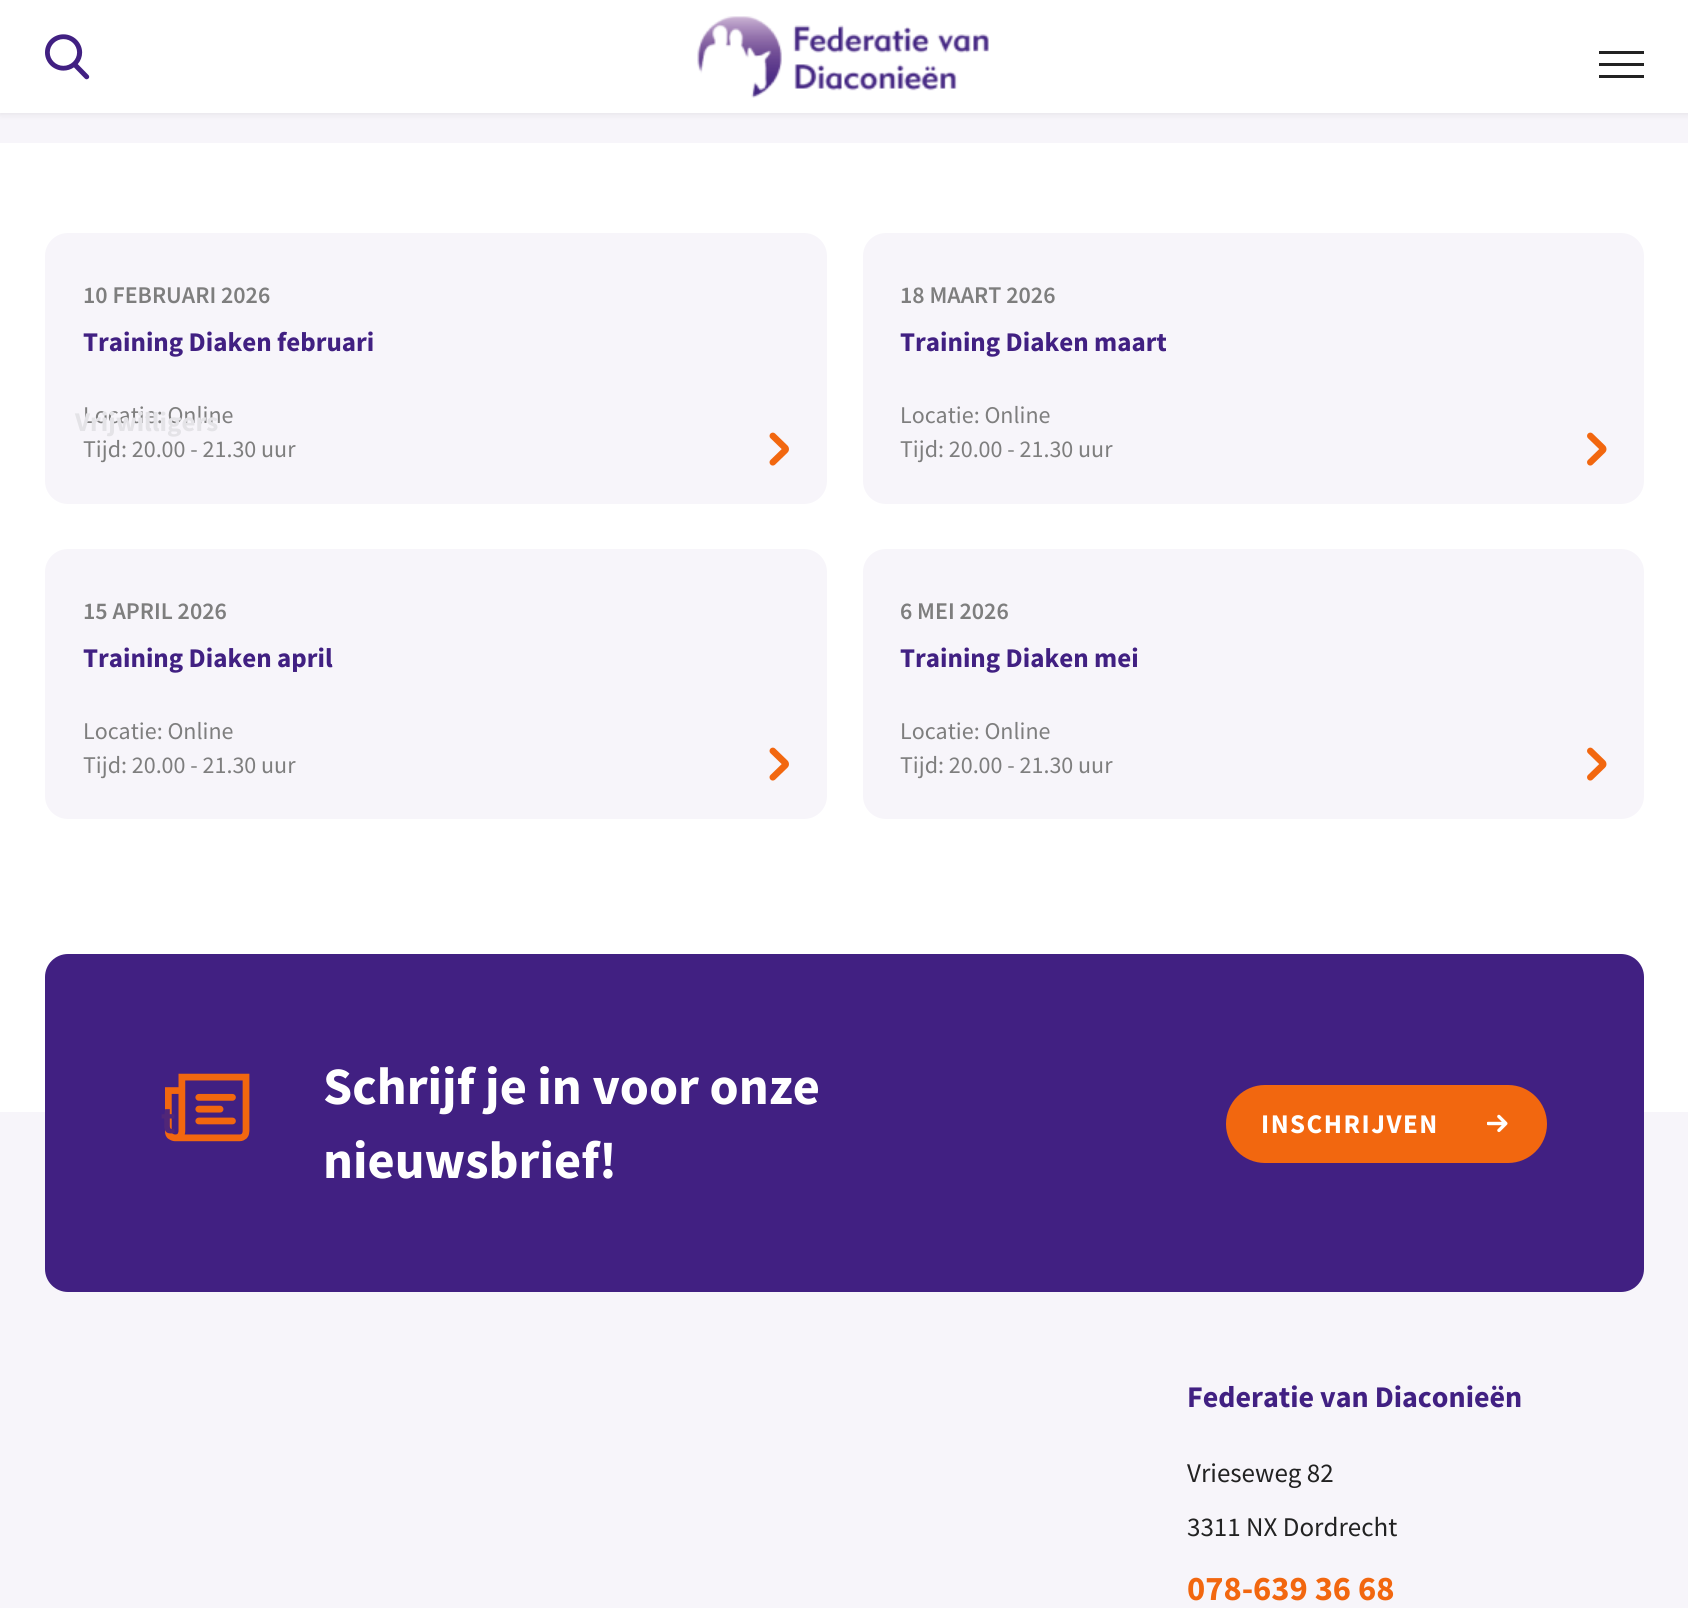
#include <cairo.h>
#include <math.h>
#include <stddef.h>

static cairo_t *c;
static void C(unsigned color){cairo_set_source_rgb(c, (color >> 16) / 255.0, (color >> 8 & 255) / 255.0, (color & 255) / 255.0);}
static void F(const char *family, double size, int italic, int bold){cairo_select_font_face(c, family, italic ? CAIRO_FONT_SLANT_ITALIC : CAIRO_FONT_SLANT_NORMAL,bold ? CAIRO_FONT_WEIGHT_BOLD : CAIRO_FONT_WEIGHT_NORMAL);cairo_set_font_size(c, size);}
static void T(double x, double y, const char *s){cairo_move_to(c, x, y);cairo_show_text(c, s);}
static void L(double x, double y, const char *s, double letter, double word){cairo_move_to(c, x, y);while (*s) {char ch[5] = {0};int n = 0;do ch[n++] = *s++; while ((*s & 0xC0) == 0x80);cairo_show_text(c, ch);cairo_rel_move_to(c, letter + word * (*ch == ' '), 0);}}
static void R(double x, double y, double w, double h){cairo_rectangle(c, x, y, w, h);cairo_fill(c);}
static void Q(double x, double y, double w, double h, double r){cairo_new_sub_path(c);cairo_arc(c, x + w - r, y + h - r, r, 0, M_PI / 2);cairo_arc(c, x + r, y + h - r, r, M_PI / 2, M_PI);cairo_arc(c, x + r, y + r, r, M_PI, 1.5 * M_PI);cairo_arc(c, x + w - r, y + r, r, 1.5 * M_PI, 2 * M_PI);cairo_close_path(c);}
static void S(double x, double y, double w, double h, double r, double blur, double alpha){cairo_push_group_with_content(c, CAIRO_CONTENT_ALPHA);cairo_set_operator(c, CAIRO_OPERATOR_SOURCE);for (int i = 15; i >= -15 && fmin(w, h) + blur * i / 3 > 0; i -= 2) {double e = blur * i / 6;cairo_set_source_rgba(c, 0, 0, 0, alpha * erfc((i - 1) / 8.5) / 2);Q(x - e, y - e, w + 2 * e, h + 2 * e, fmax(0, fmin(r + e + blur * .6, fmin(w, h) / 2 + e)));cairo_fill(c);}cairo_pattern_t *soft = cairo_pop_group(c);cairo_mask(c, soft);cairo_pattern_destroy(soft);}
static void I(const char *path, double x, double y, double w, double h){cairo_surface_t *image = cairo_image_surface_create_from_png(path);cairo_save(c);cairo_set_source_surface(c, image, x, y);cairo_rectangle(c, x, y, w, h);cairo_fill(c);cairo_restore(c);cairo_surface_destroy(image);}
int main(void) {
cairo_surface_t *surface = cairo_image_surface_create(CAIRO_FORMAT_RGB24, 1688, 1608);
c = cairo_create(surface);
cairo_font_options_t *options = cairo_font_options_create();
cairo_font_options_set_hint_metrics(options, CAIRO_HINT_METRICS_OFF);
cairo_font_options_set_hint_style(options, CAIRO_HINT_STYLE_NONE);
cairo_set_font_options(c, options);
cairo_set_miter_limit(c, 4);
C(0xffffff);
cairo_paint(c);
C(0xf7f5fa);
R(0,113,1688,30);
C(0x000000);
S(0,0,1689,113,0,4,.1);
C(0xffffff);
R(0,0,1688,113);
I("1.png",45,34,45,46);
I("2.png",697,16,292,82);
C(0x222222);
R(1599,63,45,3);
R(1599,51,45,3);
R(1599,75,45,3);
C(0xf7f5fa);
Q(45,233,782,271,23);
cairo_fill(c);
F("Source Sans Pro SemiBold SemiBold",24,0,0);
C(0x7e7e7e);
T(83,303,"10 FEBRUARI 2026");
F("Source Sans Pro",27,0,1);
C(0x412082);
T(83,351,"Training Diaken februari");
F("Source Sans Pro",24,0,0);
C(0x7e7e7e);
T(83,423,"Locatie: Online");
T(83,457,"Tijd: 20.00 - 21.30 uur");
I("3.png",769,432,20,34);
C(0xf7f5fa);
Q(863,233,781,271,23);
cairo_fill(c);
F("Source Sans Pro SemiBold SemiBold",24,0,0);
C(0x7e7e7e);
T(900,303,"18 MAART 2026");
F("Source Sans Pro",27,0,1);
C(0x412082);
T(900,351,"Training Diaken maart");
F("Source Sans Pro",24,0,0);
C(0x7e7e7e);
T(900,423,"Locatie: Online");
T(900,457,"Tijd: 20.00 - 21.30 uur");
I("4.png",1587,432,20,34);
C(0xf7f5fa);
Q(45,549,782,270,23);
cairo_fill(c);
F("Source Sans Pro SemiBold SemiBold",24,0,0);
C(0x7e7e7e);
T(83,619,"15 APRIL 2026");
F("Source Sans Pro",27,0,1);
C(0x412082);
T(83,667,"Training Diaken april");
F("Source Sans Pro",24,0,0);
C(0x7e7e7e);
T(83,739,"Locatie: Online");
T(83,773,"Tijd: 20.00 - 21.30 uur");
I("3.png",769,747,20,34);
C(0xf7f5fa);
Q(863,549,781,270,23);
cairo_fill(c);
F("Source Sans Pro SemiBold SemiBold",24,0,0);
C(0x7e7e7e);
T(900,619,"6 MEI 2026");
F("Source Sans Pro",27,0,1);
C(0x412082);
T(900,667,"Training Diaken mei");
F("Source Sans Pro",24,0,0);
C(0x7e7e7e);
T(900,739,"Locatie: Online");
T(900,773,"Tijd: 20.00 - 21.30 uur");
I("4.png",1587,747,20,34);
F("Source Sans Pro",27,0,1);
C(0xe4e3e7);
T(75,431,"Vrijwilligers");
C(0xf7f5fa);
R(0,1112,1688,496);
C(0x412082);
Q(45,954,1599,338,23);
cairo_fill(c);
I("5.png",165,1073,85,69);
F("Source Sans Pro",38,0,1);
C(0x502678);
T(161,1133,"t");
F("Source Sans Pro",52.5,0,1);
C(0xffffff);
T(323,1104,"Schrijf je in voor onze");
T(323,1178,"nieuwsbrief!");
C(0xf2670f);
Q(1226,1085,321,78,39);
cairo_fill(c);
F("Source Sans Pro",27,0,1);
C(0xffffff);
L(1261,1133,"INSCHRIJVEN",1.5,0);
I("6.png",1487,1114,21,19);
F("Source Sans Pro",30,0,1);
C(0x412082);
T(1187,1407,"Federatie van Diaconieën");
F("Source Sans Pro",27,0,0);
C(0x222222);
T(1187,1482,"Vrieseweg 82");
T(1187,1536,"3311 NX Dordrecht");
F("Source Sans Pro",34.5,0,1);
C(0xf2670f);
T(1187,1600,"078-639 36 68");
cairo_surface_write_to_png(surface, "o.png");
cairo_font_options_destroy(options);
cairo_destroy(c);
cairo_surface_destroy(surface);
return 0;
}
